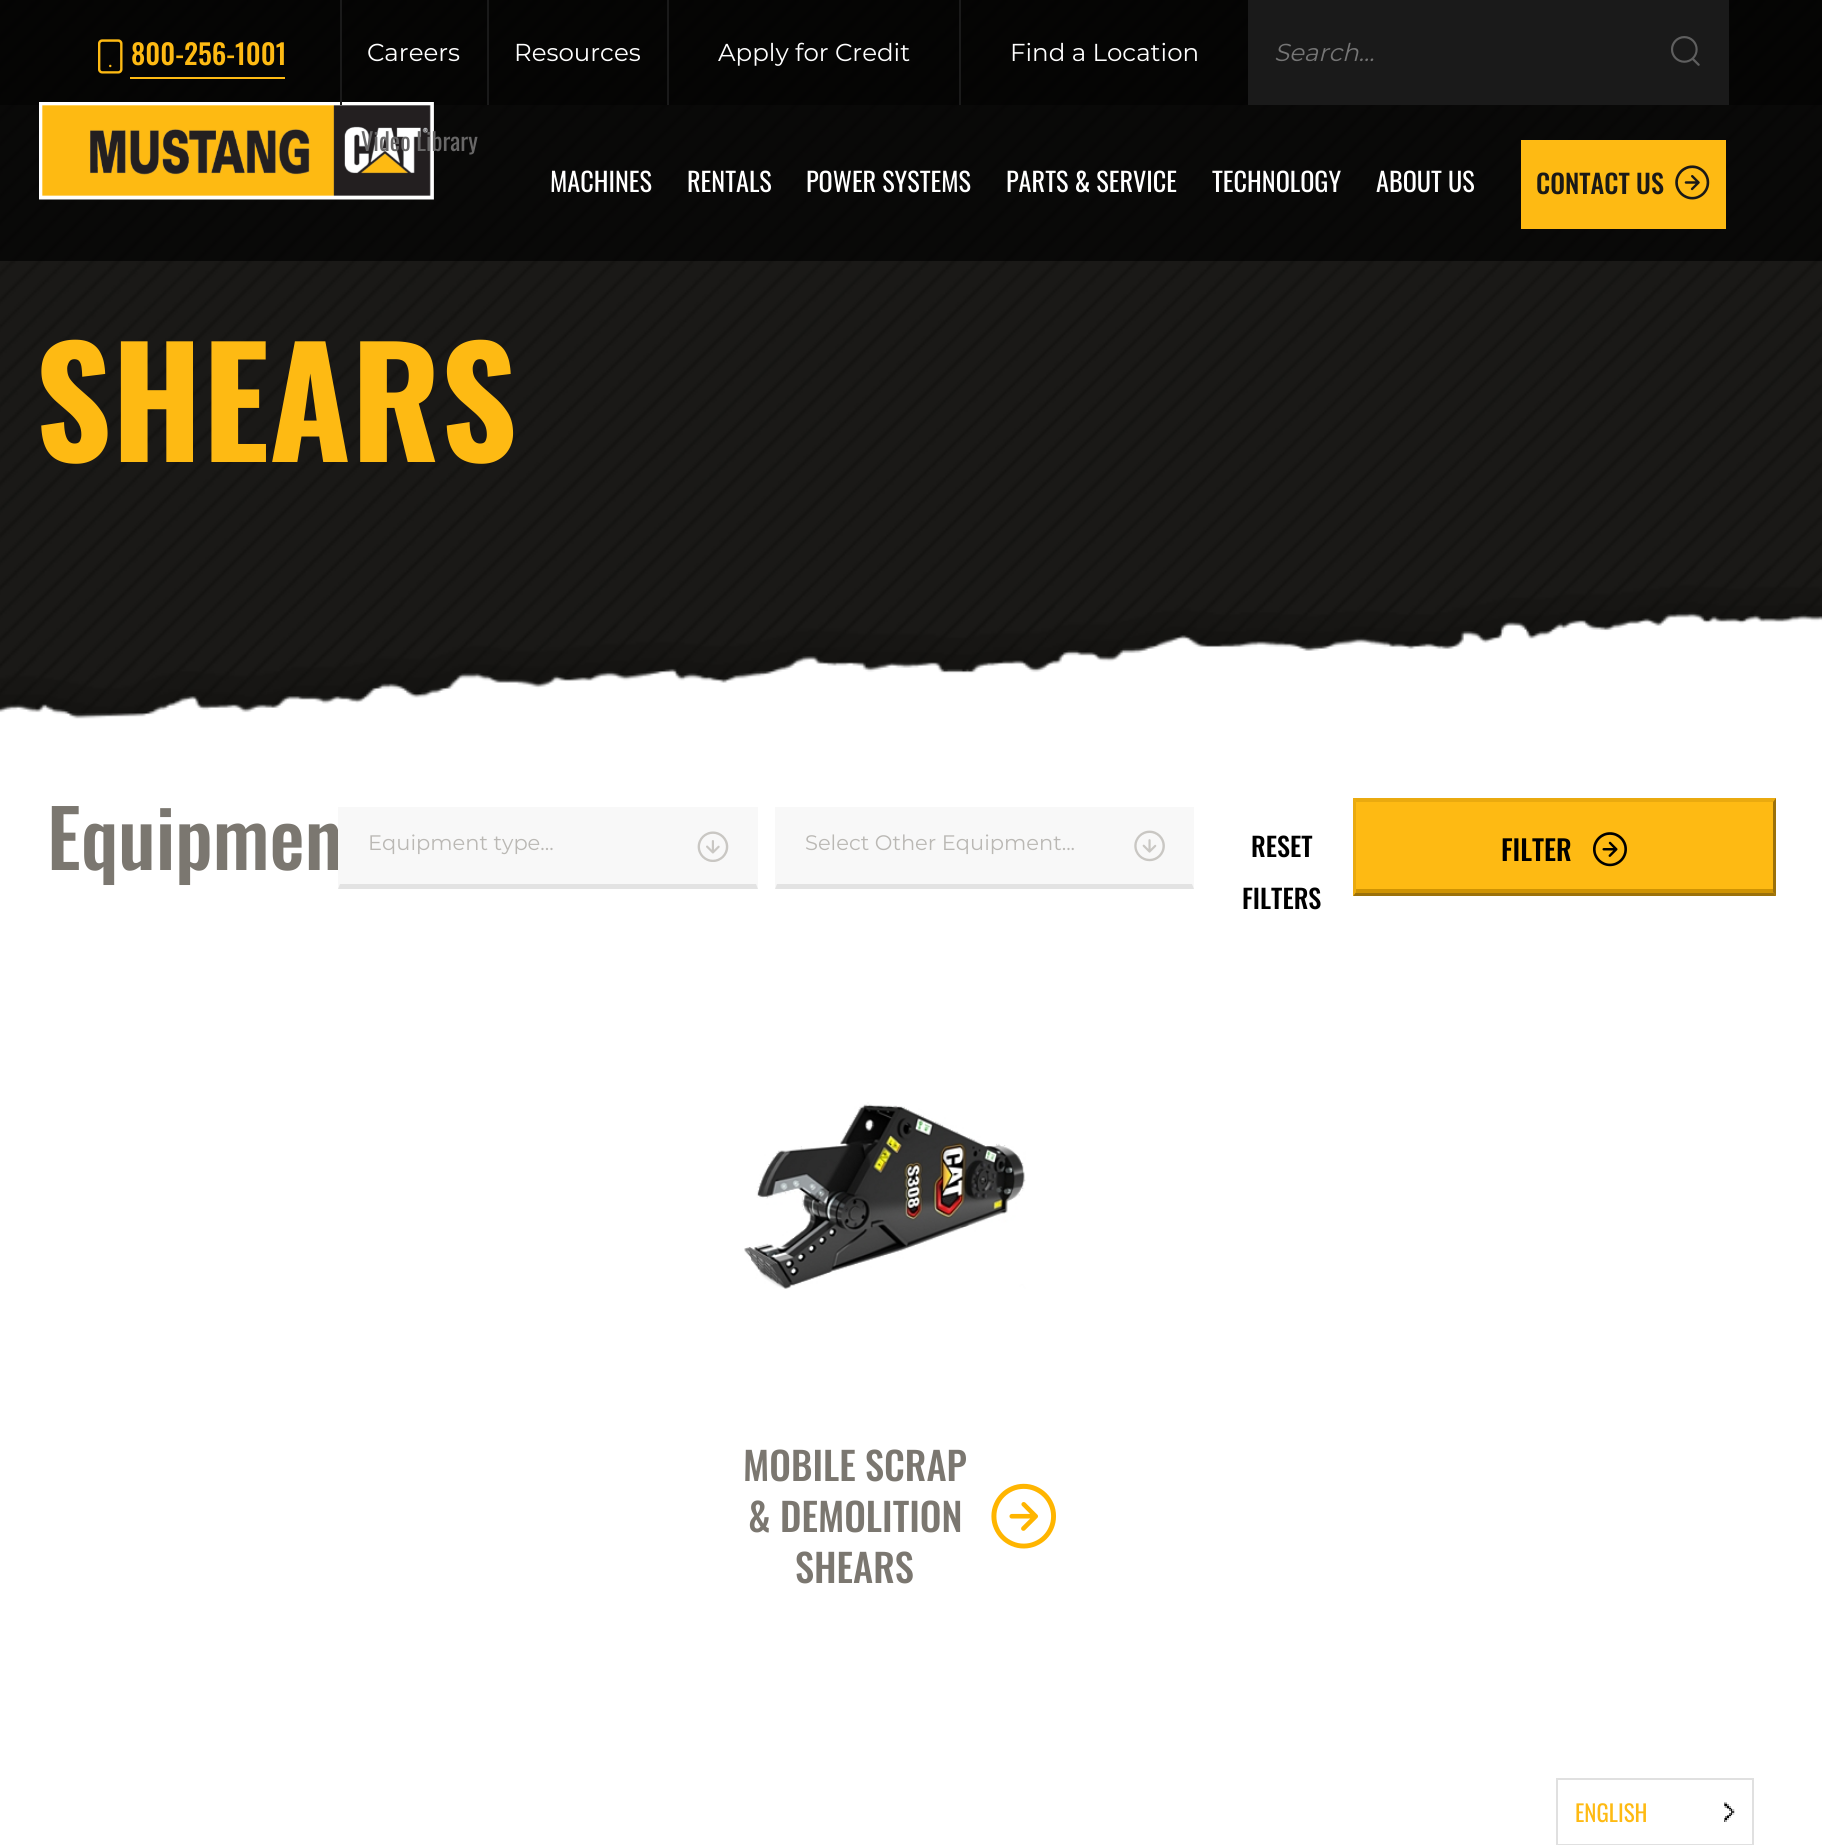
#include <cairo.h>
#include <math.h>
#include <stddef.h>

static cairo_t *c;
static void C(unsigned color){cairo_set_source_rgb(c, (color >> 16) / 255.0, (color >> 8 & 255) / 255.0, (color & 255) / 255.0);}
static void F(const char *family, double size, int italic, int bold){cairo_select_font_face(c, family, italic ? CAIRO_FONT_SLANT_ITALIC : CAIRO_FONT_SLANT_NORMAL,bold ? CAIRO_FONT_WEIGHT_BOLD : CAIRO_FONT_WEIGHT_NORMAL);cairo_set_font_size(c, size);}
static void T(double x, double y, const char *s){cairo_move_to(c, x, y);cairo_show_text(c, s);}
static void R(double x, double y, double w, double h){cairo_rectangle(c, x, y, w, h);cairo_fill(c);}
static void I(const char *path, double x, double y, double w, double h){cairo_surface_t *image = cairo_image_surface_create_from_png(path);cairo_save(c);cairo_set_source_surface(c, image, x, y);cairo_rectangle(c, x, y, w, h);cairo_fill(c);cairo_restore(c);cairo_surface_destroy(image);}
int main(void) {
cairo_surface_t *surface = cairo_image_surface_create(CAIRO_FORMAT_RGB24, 1822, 1845);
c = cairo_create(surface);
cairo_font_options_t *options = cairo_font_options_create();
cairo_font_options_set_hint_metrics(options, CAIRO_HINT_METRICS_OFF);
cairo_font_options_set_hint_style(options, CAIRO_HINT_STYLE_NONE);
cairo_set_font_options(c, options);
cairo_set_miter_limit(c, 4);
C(0xffffff);
cairo_paint(c);
I("5.png",0,0,1822,719);
cairo_set_source_rgba(c,0,0,0,0.82);
R(0,0,1822,105);
I("1.png",98,39,25,35);
F("Oswald Medium",28,0,0);
C(0xfeba13);
T(131,65,"800-256-1001");
R(130,77,155,2);
C(0x1a1a1a);
R(487,0,2,105);
F("Montserrat",24.5,0,0);
C(0xffffff);
T(514,61,"Resources");
cairo_set_source_rgba(c,0,0,0,0.65);
R(0,105,1822,156);
I("3.png",39,102,395,98);
F("Oswald",24.5,0,0);
C(0x686767);
T(361,151,"Video Library");
C(0x1a1a1a);
R(667,0,2,105);
F("Montserrat",24.5,0,0);
C(0xffffff);
T(718,61,"Apply for Credit");
C(0x1a1a1a);
R(959,0,2,105);
C(0xffffff);
T(1010,61,"Find a Location");
C(0x1a1a1a);
R(340,0,2,105);
C(0xffffff);
T(367,61,"Careers");
C(0x1a1a1a);
R(1248,0,481,105);
F("Montserrat",24.5,1,0);
C(0x757575);
T(1274,61,"Search...");
I("2.png",1671,36,29,30);
F("Oswald",26.25,0,0);
C(0xffffff);
T(550,192,"MACHINES");
T(687,192,"RENTALS");
T(806,192,"POWER SYSTEMS");
T(1006,192,"PARTS & SERVICE");
T(1212,192,"TECHNOLOGY");
T(1376,192,"ABOUT US");
C(0xfeba13);
R(1521,140,205,89);
F("Oswald Medium",26.25,0,0);
C(0x1a1917);
T(1536,194,"CONTACT US");
I("4.png",1675,165,35,35);
F("Oswald",149,0,1);
C(0xfeba13);
T(35,462,"SHEARS");
F("Oswald Medium",79,0,0);
C(0x7b7770);
T(47,870,"Equipmen");
C(0xf8f8f8);
R(338,807,420,82);
C(0xe3e3e3);
cairo_new_path(c);
cairo_move_to(c,758,889);
cairo_line_to(c,338,889);
cairo_line_to(c,340,884);
cairo_line_to(c,756,884);
cairo_close_path(c);
cairo_fill(c);
F("Montserrat",21,0,0);
C(0xbab8b4);
T(368,850,"Equipment type...");
I("6.png",697,831,32,31);
C(0xf8f8f8);
R(775,807,419,82);
C(0xe3e3e3);
cairo_new_path(c);
cairo_move_to(c,1194,889);
cairo_line_to(c,775,889);
cairo_line_to(c,777,884);
cairo_line_to(c,1192,884);
cairo_close_path(c);
cairo_fill(c);
C(0xbab8b4);
T(805,850,"Select Other Equipment...");
I("7.png",1134,830,31,32);
F("Oswald Medium",26.25,0,0);
C(0x000000);
T(1251,857,"RESET");
T(1242,909,"FILTERS");
C(0xfeba13);
R(1353,798,423,98);
C(0xeaaa0f);
cairo_new_path(c);
cairo_move_to(c,1353,798);
cairo_line_to(c,1776,798);
cairo_line_to(c,1773,802);
cairo_line_to(c,1356,802);
cairo_close_path(c);
cairo_fill(c);
C(0x9c710a);
cairo_new_path(c);
cairo_move_to(c,1776,798);
cairo_line_to(c,1776,896);
cairo_line_to(c,1773,892);
cairo_line_to(c,1773,802);
cairo_close_path(c);
cairo_fill(c);
cairo_new_path(c);
cairo_move_to(c,1776,896);
cairo_line_to(c,1353,896);
cairo_line_to(c,1356,892);
cairo_line_to(c,1773,892);
cairo_close_path(c);
cairo_fill(c);
C(0xeaaa0f);
cairo_new_path(c);
cairo_move_to(c,1353,896);
cairo_line_to(c,1353,798);
cairo_line_to(c,1356,802);
cairo_line_to(c,1356,892);
cairo_close_path(c);
cairo_fill(c);
F("Oswald Medium",28,0,0);
C(0x000000);
T(1501,861,"FILTER");
I("8.png",1593,832,34,35);
C(0xcf9303);
R(1356,889,417,4);
I("9.png",744,1102,282,187);
F("Oswald Medium",38.5,0,0);
C(0x7b7770);
T(743,1481,"MOBILE SCRAP");
T(748,1532,"& DEMOLITION");
I("10.png",991,1483,65,66);
T(795,1583,"SHEARS");
cairo_rectangle(c,1557,1779,196,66);
C(0xe0e0e0);
cairo_stroke(c);
F("Oswald",23,0,0);
C(0xfeba13);
T(1575,1822,"ENGLISH");
I("11.png",1724,1802,11,20);
cairo_surface_write_to_png(surface, "o.png");
cairo_font_options_destroy(options);
cairo_destroy(c);
cairo_surface_destroy(surface);
return 0;
}
